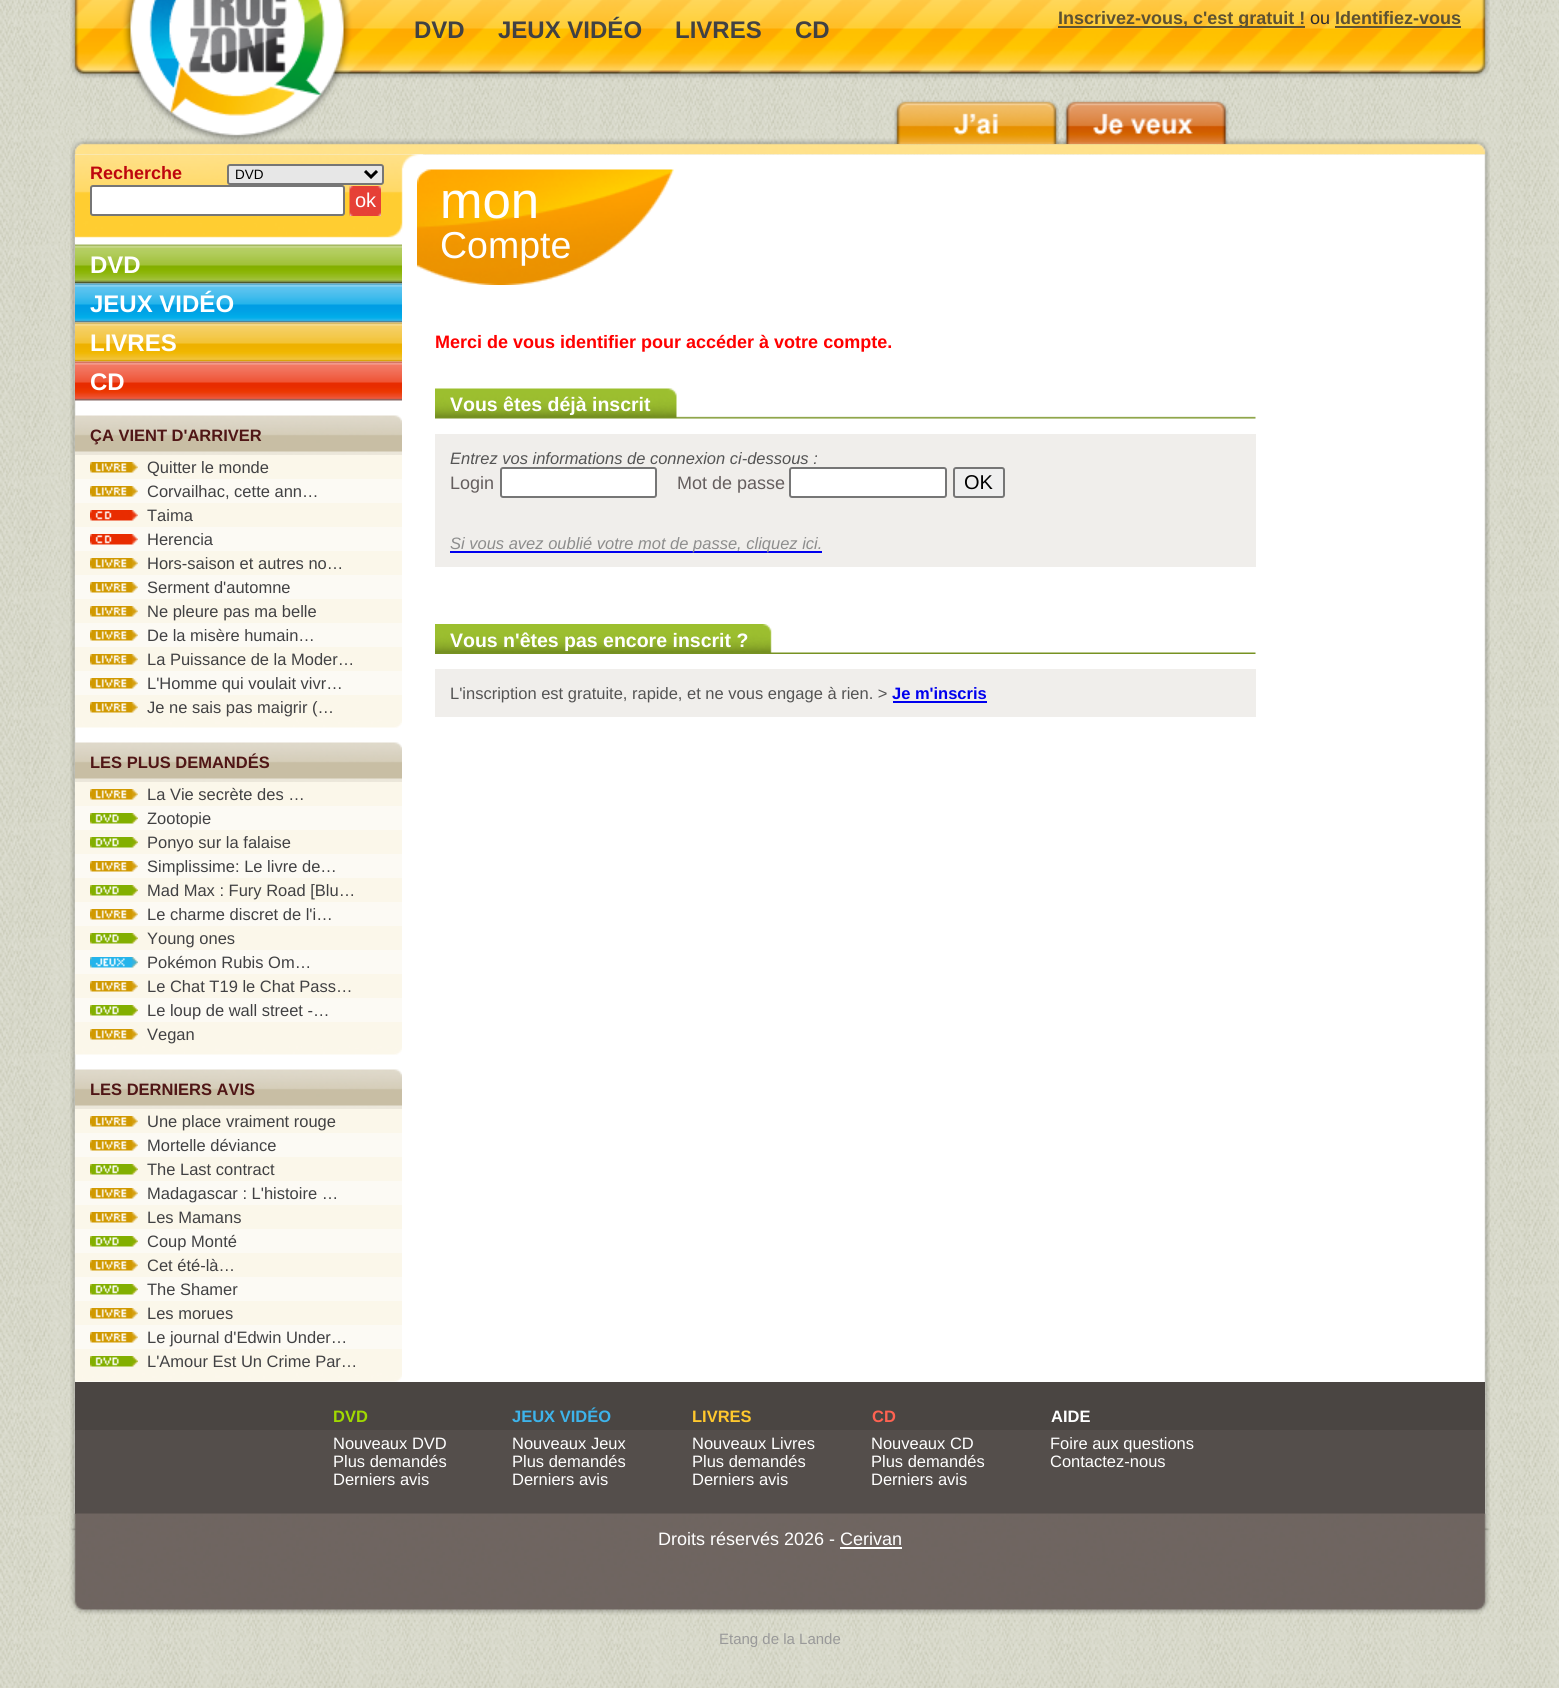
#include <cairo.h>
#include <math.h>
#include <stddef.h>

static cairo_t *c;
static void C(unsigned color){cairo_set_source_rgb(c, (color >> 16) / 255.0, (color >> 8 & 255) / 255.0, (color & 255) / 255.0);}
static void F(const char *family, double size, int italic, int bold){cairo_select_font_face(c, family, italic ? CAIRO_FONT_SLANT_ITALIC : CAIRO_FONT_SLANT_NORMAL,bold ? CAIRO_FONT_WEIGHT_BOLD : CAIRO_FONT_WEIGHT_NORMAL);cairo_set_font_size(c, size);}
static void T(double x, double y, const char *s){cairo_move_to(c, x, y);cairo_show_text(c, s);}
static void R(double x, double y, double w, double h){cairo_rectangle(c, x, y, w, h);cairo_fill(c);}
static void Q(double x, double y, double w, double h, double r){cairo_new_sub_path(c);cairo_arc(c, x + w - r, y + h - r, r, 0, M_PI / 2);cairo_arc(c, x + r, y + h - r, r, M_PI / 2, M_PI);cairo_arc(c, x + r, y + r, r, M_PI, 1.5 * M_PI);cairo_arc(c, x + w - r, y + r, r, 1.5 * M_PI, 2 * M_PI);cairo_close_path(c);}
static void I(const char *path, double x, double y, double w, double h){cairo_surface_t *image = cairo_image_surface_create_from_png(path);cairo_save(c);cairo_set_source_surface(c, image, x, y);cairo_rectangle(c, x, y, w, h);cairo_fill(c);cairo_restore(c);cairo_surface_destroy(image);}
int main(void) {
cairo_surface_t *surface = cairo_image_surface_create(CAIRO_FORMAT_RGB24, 1559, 1688);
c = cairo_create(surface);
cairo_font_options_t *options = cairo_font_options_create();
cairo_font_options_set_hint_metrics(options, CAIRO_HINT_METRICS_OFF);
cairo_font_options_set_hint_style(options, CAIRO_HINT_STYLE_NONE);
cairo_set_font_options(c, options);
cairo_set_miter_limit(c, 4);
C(0xffffff);
cairo_paint(c);
I("1.png",0,0,1559,1688);
I("2.png",70,0,1420,155);
F("Liberation Sans",24,0,1);
C(0x414143);
T(414,38,"DVD");
T(498,38,"JEUX VIDÉO");
T(675,38,"LIVRES");
T(795,38,"CD");
C(0x5e5231);
R(1058,26,247,2);
F("Liberation Sans",18,0,1);
T(1058,24,"Inscrivez-vous, c'est gratuit !");
F("Liberation Sans",18,0,0);
C(0x2c2a2d);
T(1310,24,"ou");
F("Liberation Sans",18,0,1);
C(0x5e5231);
T(1335,24,"Identifiez-vous");
R(1335,26,126,2);
I("3.png",894,100,165,44);
I("4.png",1063,100,166,44);
I("5.png",70,154,1420,1360);
I("6.png",75,154,348,91);
C(0xbe060e);
T(90,179,"Recherche");
C(0xe7e7e7);
Q(228,165,155,19,2);
cairo_fill_preserve(c);
C(0x767676);
cairo_stroke(c);
cairo_new_path(c);
cairo_move_to(c,365,171);
cairo_line_to(c,371,177);
cairo_line_to(c,377,171);
C(0x000000);
cairo_set_line_width(c,3);
cairo_stroke(c);
F("Liberation Sans",13.5,0,0);
T(235,179,"DVD");
C(0xffffff);
Q(91,186,253,29,2);
cairo_fill_preserve(c);
C(0x767676);
cairo_set_line_width(c,2);
cairo_stroke(c);
C(0xefefef);
R(350,186,31,30);
I("7.png",349,186,32,30);
F("Liberation Sans",20,0,0);
C(0xffffff);
T(355,207,"ok");
I("8.png",75,244,327,40);
F("Liberation Sans",24,0,1);
T(90,273,"DVD");
I("9.png",75,283,327,40);
T(90,312,"JEUX VIDÉO");
I("10.png",75,322,327,40);
T(90,351,"LIVRES");
I("11.png",75,361,327,40);
T(90,390,"CD");
I("12.png",75,415,327,40);
F("Liberation Sans",16.5,0,1);
C(0x501616);
T(90,441,"ÇA VIENT D'ARRIVER");
C(0xfbf7ea);
R(75,455,327,24);
I("13.png",90,462,48,11);
F("Liberation Sans",16.5,0,0);
C(0x414143);
T(147,473,"Quitter le monde");
C(0xfcfaf4);
R(75,479,327,24);
I("14.png",90,486,48,11);
C(0x414143);
T(147,497,"Corvailhac, cette ann…");
C(0xfbf7ea);
R(75,503,327,24);
I("15.png",90,510,48,11);
C(0x414143);
T(147,521,"Taima");
C(0xfcfaf4);
R(75,527,327,24);
I("16.png",90,534,48,11);
C(0x414143);
T(147,545,"Herencia");
C(0xfbf7ea);
R(75,551,327,24);
I("13.png",90,558,48,11);
C(0x414143);
T(147,569,"Hors-saison et autres no…");
C(0xfcfaf4);
R(75,575,327,24);
I("14.png",90,582,48,11);
C(0x414143);
T(147,593,"Serment d'automne");
C(0xfbf7ea);
R(75,599,327,24);
I("13.png",90,606,48,11);
C(0x414143);
T(147,617,"Ne pleure pas ma belle");
C(0xfcfaf4);
R(75,623,327,24);
I("14.png",90,630,48,11);
C(0x414143);
T(147,641,"De la misère humain…");
C(0xfbf7ea);
R(75,647,327,24);
I("13.png",90,654,48,11);
C(0x414143);
T(147,665,"La Puissance de la Moder…");
C(0xfcfaf4);
R(75,671,327,24);
I("14.png",90,678,48,11);
C(0x414143);
T(147,689,"L'Homme qui voulait vivr…");
C(0xfbf7ea);
R(75,695,327,24);
I("13.png",90,702,48,11);
C(0x414143);
T(147,713,"Je ne sais pas maigrir (…");
I("17.png",75,719,327,9);
I("12.png",75,742,327,40);
F("Liberation Sans",16.5,0,1);
C(0x501616);
T(90,768,"LES PLUS DEMANDÉS");
C(0xfbf7ea);
R(75,782,327,24);
I("13.png",90,789,48,11);
F("Liberation Sans",16.5,0,0);
C(0x414143);
T(147,800,"La Vie secrète des …");
C(0xfcfaf4);
R(75,806,327,24);
I("18.png",90,813,48,11);
C(0x414143);
T(147,824,"Zootopie");
C(0xfbf7ea);
R(75,830,327,24);
I("19.png",90,837,48,11);
C(0x414143);
T(147,848,"Ponyo sur la falaise");
C(0xfcfaf4);
R(75,854,327,24);
I("14.png",90,861,48,11);
C(0x414143);
T(147,872,"Simplissime: Le livre de…");
C(0xfbf7ea);
R(75,878,327,24);
I("19.png",90,885,48,11);
C(0x414143);
T(147,896,"Mad Max : Fury Road [Blu…");
C(0xfcfaf4);
R(75,902,327,24);
I("14.png",90,909,48,11);
C(0x414143);
T(147,920,"Le charme discret de l'i…");
C(0xfbf7ea);
R(75,926,327,24);
I("19.png",90,933,48,11);
C(0x414143);
T(147,944,"Young ones");
C(0xfcfaf4);
R(75,950,327,24);
I("20.png",90,957,48,11);
C(0x414143);
T(147,968,"Pokémon Rubis Om…");
C(0xfbf7ea);
R(75,974,327,24);
I("13.png",90,981,48,11);
C(0x414143);
T(147,992,"Le Chat T19 le Chat Pass…");
C(0xfcfaf4);
R(75,998,327,24);
I("18.png",90,1005,48,11);
C(0x414143);
T(147,1016,"Le loup de wall street -…");
C(0xfbf7ea);
R(75,1022,327,24);
I("13.png",90,1029,48,11);
C(0x414143);
T(147,1040,"Vegan");
I("21.png",75,1046,327,9);
I("12.png",75,1069,327,40);
F("Liberation Sans",16.5,0,1);
C(0x501616);
T(90,1095,"LES DERNIERS AVIS");
C(0xfbf7ea);
R(75,1109,327,24);
I("13.png",90,1116,48,11);
F("Liberation Sans",16.5,0,0);
C(0x414143);
T(147,1127,"Une place vraiment rouge");
C(0xfcfaf4);
R(75,1133,327,24);
I("14.png",90,1140,48,11);
C(0x414143);
T(147,1151,"Mortelle déviance");
C(0xfbf7ea);
R(75,1157,327,24);
I("19.png",90,1164,48,11);
C(0x414143);
T(147,1175,"The Last contract");
C(0xfcfaf4);
R(75,1181,327,24);
I("14.png",90,1188,48,11);
C(0x414143);
T(147,1199,"Madagascar : L'histoire …");
C(0xfbf7ea);
R(75,1205,327,24);
I("13.png",90,1212,48,11);
C(0x414143);
T(147,1223,"Les Mamans");
C(0xfcfaf4);
R(75,1229,327,24);
I("18.png",90,1236,48,11);
C(0x414143);
T(147,1247,"Coup Monté");
C(0xfbf7ea);
R(75,1253,327,24);
I("13.png",90,1260,48,11);
C(0x414143);
T(147,1271,"Cet été-là…");
C(0xfcfaf4);
R(75,1277,327,24);
I("18.png",90,1284,48,11);
C(0x414143);
T(147,1295,"The Shamer");
C(0xfbf7ea);
R(75,1301,327,24);
I("13.png",90,1308,48,11);
C(0x414143);
T(147,1319,"Les morues");
C(0xfcfaf4);
R(75,1325,327,24);
I("14.png",90,1332,48,11);
C(0x414143);
T(147,1343,"Le journal d'Edwin Under…");
C(0xfbf7ea);
R(75,1349,327,24);
I("19.png",90,1356,48,11);
C(0x414143);
T(147,1367,"L'Amour Est Un Crime Par…");
I("22.png",75,1373,327,9);
I("23.png",417,169,257,116);
F("Liberation Sans",51,0,0);
C(0xffffff);
T(440,218,"mon");
F("Liberation Sans",37.5,0,0);
T(440,258,"Compte");
F("Liberation Sans",18,0,1);
C(0xff0000);
T(435,348,"Merci de vous identifier pour accéder à votre compte.");
I("24.png",435,388,821,31);
F("Liberation Sans",19.5,0,1);
C(0xffffff);
T(450,411,"Vous êtes déjà inscrit");
C(0xf0eeeb);
R(435,434,821,133);
F("Liberation Sans",16.5,1,0);
C(0x545454);
T(450,464,"Entrez vos informations de connexion ci-dessous :");
F("Liberation Sans",18,0,0);
C(0x655e5e);
T(450,489,"Login");
C(0xffffff);
Q(501,468,155,29,2);
cairo_fill_preserve(c);
C(0x767676);
cairo_stroke(c);
C(0x655e5e);
T(677,489,"Mot de passe");
C(0xffffff);
Q(790,468,156,29,2);
cairo_fill_preserve(c);
C(0x767676);
cairo_stroke(c);
C(0xefefef);
Q(954,468,50,29,2);
cairo_fill_preserve(c);
C(0x767676);
cairo_stroke(c);
F("Liberation Sans",20,0,0);
C(0x000000);
T(964,489,"OK");
C(0x0000ee);
R(450,551,372,2);
F("Liberation Sans",16.5,1,0);
C(0x8d8d8d);
T(450,549,"Si vous avez oublié votre mot de passe, cliquez ici.");
I("25.png",435,624,821,30);
F("Liberation Sans",19.5,0,1);
C(0xffffff);
T(450,647,"Vous n'êtes pas encore inscrit ?");
C(0xf0eeeb);
R(435,669,821,48);
F("Liberation Sans",16.5,0,0);
C(0x545454);
T(450,699,"L'inscription est gratuite, rapide, et ne vous engage à rien. >");
F("Liberation Sans",16.5,0,1);
C(0x0000ee);
T(892,699,"Je m'inscris");
R(893,701,94,2);
C(0x4a4542);
R(75,1382,1410,48);
C(0xa0d900);
T(333,1422,"DVD");
C(0x3db3ea);
T(512,1422,"JEUX VIDÉO");
C(0xffc82d);
T(692,1422,"LIVRES");
C(0xff6251);
T(872,1422,"CD");
C(0xffffff);
T(1051,1422,"AIDE");
C(0x544e4b);
R(75,1430,1410,84);
F("Liberation Sans",16.5,0,0);
C(0xffffff);
T(333,1449,"Nouveaux DVD");
T(333,1467,"Plus demandés");
T(333,1485,"Derniers avis");
T(512,1449,"Nouveaux Jeux");
T(512,1467,"Plus demandés");
T(512,1485,"Derniers avis");
T(692,1449,"Nouveaux Livres");
T(692,1467,"Plus demandés");
T(692,1485,"Derniers avis");
T(871,1449,"Nouveaux CD");
T(871,1467,"Plus demandés");
T(871,1485,"Derniers avis");
T(1050,1449,"Foire aux questions");
T(1050,1467,"Contactez-nous");
I("26.png",69,1513,1422,102);
F("Liberation Sans",18,0,0);
T(658,1545,"Droits réservés 2026 - Cerivan");
R(840,1547,62,2);
F("Liberation Sans",15,0,0);
C(0x999999);
T(719,1644,"Etang de la Lande");
cairo_surface_write_to_png(surface, "o.png");
cairo_font_options_destroy(options);
cairo_destroy(c);
cairo_surface_destroy(surface);
return 0;
}
